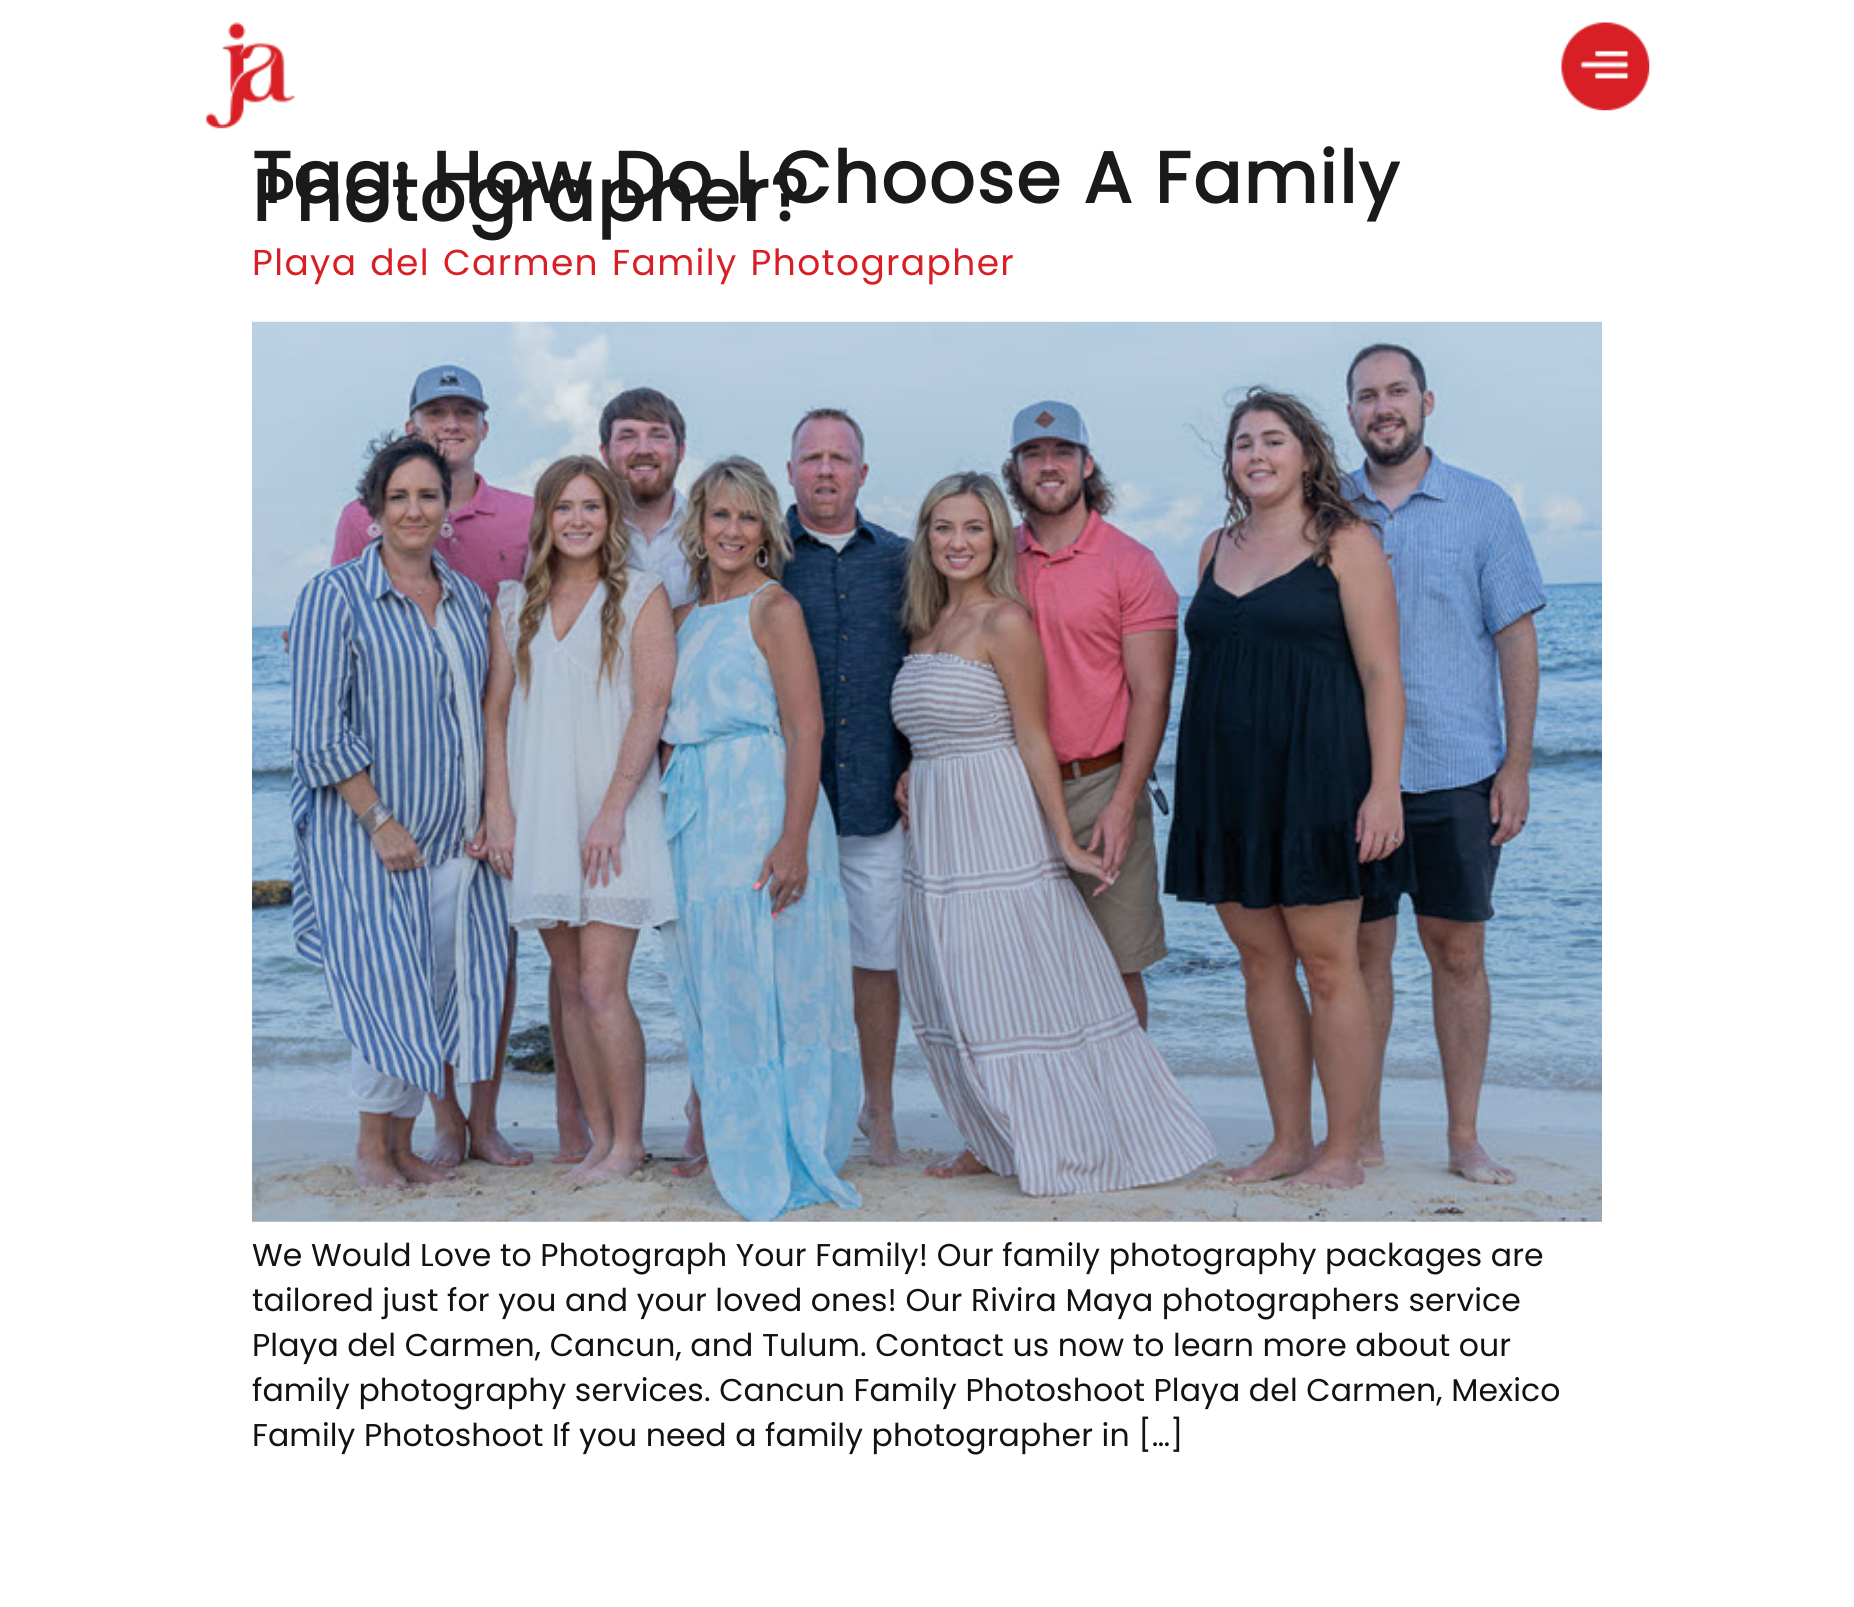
#include <cairo.h>
#include <math.h>
#include <stddef.h>

static cairo_t *c;
static void C(unsigned color){cairo_set_source_rgb(c, (color >> 16) / 255.0, (color >> 8 & 255) / 255.0, (color & 255) / 255.0);}
static void F(const char *family, double size, int italic, int bold){cairo_select_font_face(c, family, italic ? CAIRO_FONT_SLANT_ITALIC : CAIRO_FONT_SLANT_NORMAL,bold ? CAIRO_FONT_WEIGHT_BOLD : CAIRO_FONT_WEIGHT_NORMAL);cairo_set_font_size(c, size);}
static void L(double x, double y, const char *s, double letter, double word){cairo_move_to(c, x, y);while (*s) {char ch[5] = {0};int n = 0;do ch[n++] = *s++; while ((*s & 0xC0) == 0x80);cairo_show_text(c, ch);cairo_rel_move_to(c, letter + word * (*ch == ' '), 0);}}
static void I(const char *path, double x, double y, double w, double h){cairo_surface_t *image = cairo_image_surface_create_from_png(path);cairo_save(c);cairo_set_source_surface(c, image, x, y);cairo_rectangle(c, x, y, w, h);cairo_fill(c);cairo_restore(c);cairo_surface_destroy(image);}
int main(void) {
cairo_surface_t *surface = cairo_image_surface_create(CAIRO_FORMAT_RGB24, 1854, 1607);
c = cairo_create(surface);
cairo_font_options_t *options = cairo_font_options_create();
cairo_font_options_set_hint_metrics(options, CAIRO_HINT_METRICS_OFF);
cairo_font_options_set_hint_style(options, CAIRO_HINT_STYLE_NONE);
cairo_set_font_options(c, options);
cairo_set_miter_limit(c, 4);
C(0xffffff);
cairo_paint(c);
I("1.png",205,22,90,107);
I("2.png",1561,22,89,89);
F("Poppins",72,0,1);
C(0x1b1a1a);
L(252,203,"Tag: How Do I Choose A Family",1.8,0);
L(252,221,"Photographer?",1.8,0);
F("Poppins",36,0,0);
C(0xd81f26);
L(252,275,"Playa del Carmen Family Photographer",1.35,2);
I("3.png",252,321,1350,901);
F("Poppins",31.5,0,0);
C(0x131212);
L(252,1266,"We Would Love to Photograph Your Family! Our family photography packages are",.1,0);
L(252,1311,"tailored just for you and your loved ones! Our Rivira Maya photographers service",.1,0);
L(252,1356,"Playa del Carmen, Cancun, and Tulum. Contact us now to learn more about our",.1,0);
L(252,1401,"family photography services. Cancun Family Photoshoot Playa del Carmen, Mexico",.1,0);
L(252,1446,"Family Photoshoot If you need a family photographer in […]",.1,0);
cairo_surface_write_to_png(surface, "o.png");
cairo_font_options_destroy(options);
cairo_destroy(c);
cairo_surface_destroy(surface);
return 0;
}
